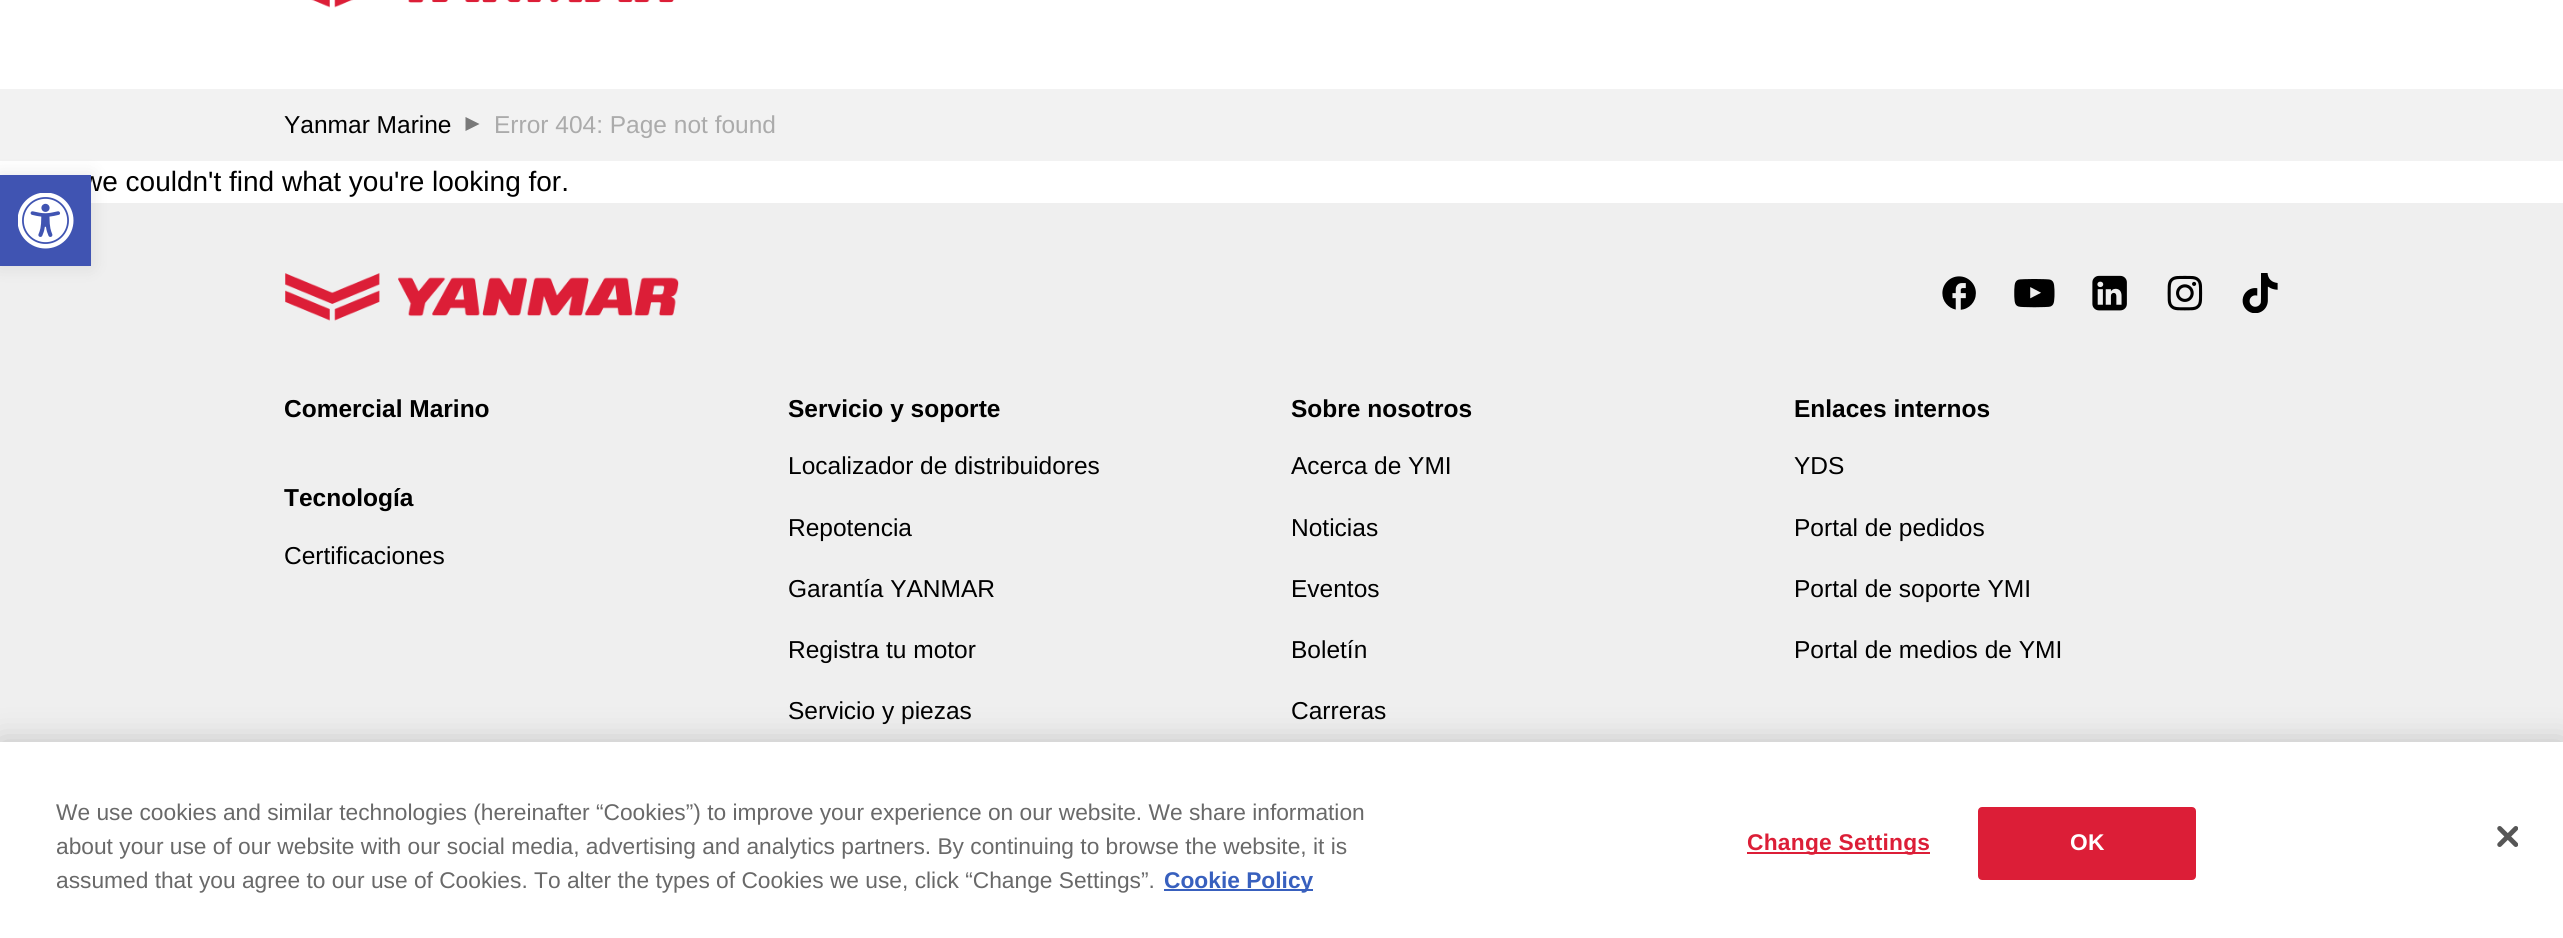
#include <cairo.h>
#include <math.h>
#include <stddef.h>

static cairo_t *c;
static void C(unsigned color){cairo_set_source_rgb(c, (color >> 16) / 255.0, (color >> 8 & 255) / 255.0, (color & 255) / 255.0);}
static void F(const char *family, double size, int italic, int bold){cairo_select_font_face(c, family, italic ? CAIRO_FONT_SLANT_ITALIC : CAIRO_FONT_SLANT_NORMAL,bold ? CAIRO_FONT_WEIGHT_BOLD : CAIRO_FONT_WEIGHT_NORMAL);cairo_set_font_size(c, size);}
static void T(double x, double y, const char *s){cairo_move_to(c, x, y);cairo_show_text(c, s);}
static void L(double x, double y, const char *s, double letter, double word){cairo_move_to(c, x, y);while (*s) {char ch[5] = {0};int n = 0;do ch[n++] = *s++; while ((*s & 0xC0) == 0x80);cairo_show_text(c, ch);cairo_rel_move_to(c, letter + word * (*ch == ' '), 0);}}
static void R(double x, double y, double w, double h){cairo_rectangle(c, x, y, w, h);cairo_fill(c);}
static void Q(double x, double y, double w, double h, double r){cairo_new_sub_path(c);cairo_arc(c, x + w - r, y + h - r, r, 0, M_PI / 2);cairo_arc(c, x + r, y + h - r, r, M_PI / 2, M_PI);cairo_arc(c, x + r, y + r, r, M_PI, 1.5 * M_PI);cairo_arc(c, x + w - r, y + r, r, 1.5 * M_PI, 2 * M_PI);cairo_close_path(c);}
static void S(double x, double y, double w, double h, double r, double blur, double alpha){cairo_push_group_with_content(c, CAIRO_CONTENT_ALPHA);cairo_set_operator(c, CAIRO_OPERATOR_SOURCE);for (int i = 15; i >= -15 && fmin(w, h) + blur * i / 3 > 0; i -= 2) {double e = blur * i / 6;cairo_set_source_rgba(c, 0, 0, 0, alpha * erfc((i - 1) / 8.5) / 2);Q(x - e, y - e, w + 2 * e, h + 2 * e, fmax(0, fmin(r + e + blur * .6, fmin(w, h) / 2 + e)));cairo_fill(c);}cairo_pattern_t *soft = cairo_pop_group(c);cairo_mask(c, soft);cairo_pattern_destroy(soft);}
static void I(const char *path, double x, double y, double w, double h){cairo_surface_t *image = cairo_image_surface_create_from_png(path);cairo_save(c);cairo_set_source_surface(c, image, x, y);cairo_rectangle(c, x, y, w, h);cairo_fill(c);cairo_restore(c);cairo_surface_destroy(image);}
int main(void) {
cairo_surface_t *surface = cairo_image_surface_create(CAIRO_FORMAT_RGB24, 2563, 938);
c = cairo_create(surface);
cairo_font_options_t *options = cairo_font_options_create();
cairo_font_options_set_hint_metrics(options, CAIRO_HINT_METRICS_OFF);
cairo_font_options_set_hint_style(options, CAIRO_HINT_STYLE_NONE);
cairo_set_font_options(c, options);
cairo_set_miter_limit(c, 4);
C(0xffffff);
cairo_paint(c);
I("1.png",311,0,363,8);
C(0xf2f2f2);
R(0,89,2563,72);
F("Liberation Sans",24.5,0,0);
C(0x000000);
T(284,133,"Yanmar Marine");
C(0x797979);
cairo_new_path(c);
cairo_move_to(c,465.5,131);
cairo_line_to(c,465.5,117);
cairo_line_to(c,479.5,124);
cairo_close_path(c);
cairo_fill(c);
C(0xababab);
T(494,133,"Error 404: Page not found");
C(0xefefef);
R(0,203,2563,539);
C(0x000000);
S(0,175,91,91,0,9,.1);
F("Liberation Sans",28,0,0);
C(0x000000);
T(82,191,"we couldn't find what you're looking for.");
C(0x4054b2);
R(0,175,91,91);
I("2.png",18,193,56,56);
I("3.png",285,273,394,48);
I("4.png",1942,276,34,34);
I("5.png",2014,279,41,29);
I("6.png",2092,275,35,36);
I("7.png",2167,275,36,36);
I("8.png",2242,273,36,40);
F("Liberation Sans",24.5,0,1);
C(0x000000);
T(284,417,"Comercial Marino");
T(284,506,"Tecnología");
F("Liberation Sans",24.5,0,0);
T(284,564,"Certificaciones");
F("Liberation Sans",24.5,0,1);
T(788,417,"Servicio y soporte");
F("Liberation Sans",24.5,0,0);
T(788,474,"Localizador de distribuidores");
T(788,536,"Repotencia");
T(788,597,"Garantía YANMAR");
T(788,658,"Registra tu motor");
T(788,719,"Servicio y piezas");
F("Liberation Sans",24.5,0,1);
T(1291,417,"Sobre nosotros");
F("Liberation Sans",24.5,0,0);
T(1291,474,"Acerca de YMI");
T(1291,536,"Noticias");
T(1291,597,"Eventos");
T(1291,658,"Boletín");
T(1291,719,"Carreras");
F("Liberation Sans",24.5,0,1);
T(1794,417,"Enlaces internos");
F("Liberation Sans",24.5,0,0);
T(1794,474,"YDS");
T(1794,536,"Portal de pedidos");
T(1794,597,"Portal de soporte YMI");
T(1794,658,"Portal de medios de YMI");
C(0x000000);
S(0,742,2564,196,0,16,.2);
C(0xffffff);
R(0,742,2563,196);
F("Liberation Sans",22.75,0,0);
C(0x696969);
T(56,820,"We use cookies and similar technologies (hereinafter “Cookies”) to improve your experience on our website. We share information");
T(56,854,"about your use of our website with our social media, advertising and analytics partners. By continuing to browse the website, it is");
T(56,888,"assumed that you agree to our use of Cookies. To alter the types of Cookies we use, click “Change Settings”.");
C(0x3860be);
R(1164,889,149,2);
F("Liberation Sans",22.75,0,1);
T(1164,888,"Cookie Policy");
C(0xdc1e37);
R(1747,852,183,2);
L(1747,850,"Change Settings",.25,0);
Q(1979,808,216,71,3);
cairo_fill_preserve(c);
cairo_stroke(c);
C(0xffffff);
L(2070,850,"OK",.25,0);
I("9.png",2497,826,21,21);
cairo_surface_write_to_png(surface, "o.png");
cairo_font_options_destroy(options);
cairo_destroy(c);
cairo_surface_destroy(surface);
return 0;
}
